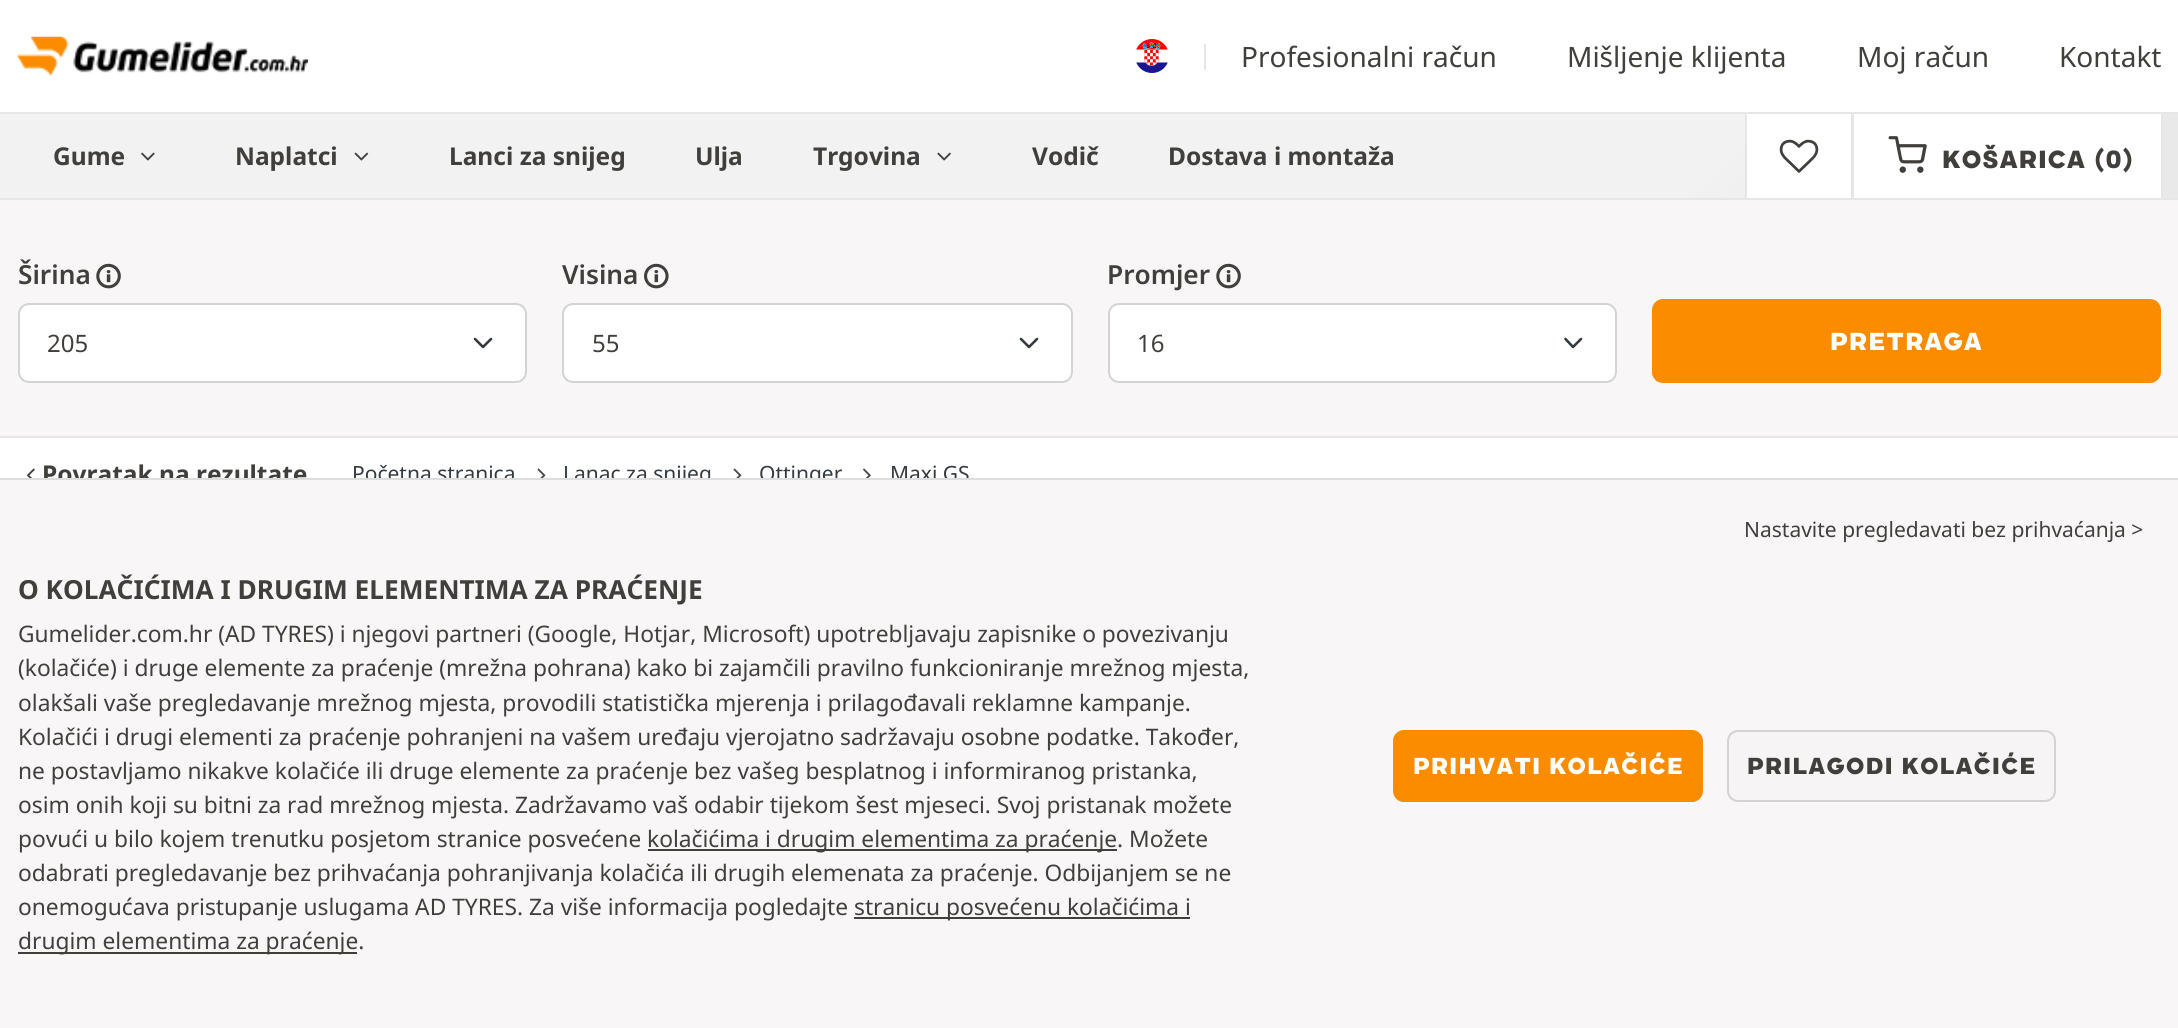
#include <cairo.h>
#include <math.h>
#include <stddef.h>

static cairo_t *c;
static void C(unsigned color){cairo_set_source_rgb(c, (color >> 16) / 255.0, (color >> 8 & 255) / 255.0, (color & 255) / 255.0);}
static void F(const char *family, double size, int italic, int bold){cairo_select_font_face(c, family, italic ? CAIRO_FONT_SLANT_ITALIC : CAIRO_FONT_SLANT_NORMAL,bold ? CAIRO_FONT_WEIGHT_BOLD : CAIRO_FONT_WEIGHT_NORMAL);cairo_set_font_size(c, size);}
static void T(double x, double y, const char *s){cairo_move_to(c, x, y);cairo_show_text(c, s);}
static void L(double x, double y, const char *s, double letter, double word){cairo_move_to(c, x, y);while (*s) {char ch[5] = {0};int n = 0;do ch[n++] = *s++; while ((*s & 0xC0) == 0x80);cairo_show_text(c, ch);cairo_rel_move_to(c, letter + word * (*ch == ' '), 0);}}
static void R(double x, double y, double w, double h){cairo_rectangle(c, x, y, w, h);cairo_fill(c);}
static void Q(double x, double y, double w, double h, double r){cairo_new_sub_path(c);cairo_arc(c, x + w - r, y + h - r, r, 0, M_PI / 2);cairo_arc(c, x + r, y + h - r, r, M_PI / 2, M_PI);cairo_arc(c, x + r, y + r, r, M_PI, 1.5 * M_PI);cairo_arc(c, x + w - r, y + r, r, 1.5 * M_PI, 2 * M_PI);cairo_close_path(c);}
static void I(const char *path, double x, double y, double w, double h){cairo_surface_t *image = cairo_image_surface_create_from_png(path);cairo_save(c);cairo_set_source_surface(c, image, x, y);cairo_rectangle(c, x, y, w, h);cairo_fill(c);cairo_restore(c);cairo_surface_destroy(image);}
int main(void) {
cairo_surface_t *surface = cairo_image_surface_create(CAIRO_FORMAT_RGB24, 2178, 1028);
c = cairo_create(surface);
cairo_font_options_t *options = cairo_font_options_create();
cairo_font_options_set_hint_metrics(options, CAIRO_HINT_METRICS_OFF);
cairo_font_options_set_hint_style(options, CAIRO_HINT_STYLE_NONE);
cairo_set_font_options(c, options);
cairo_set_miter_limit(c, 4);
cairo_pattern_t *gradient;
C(0xffffff);
cairo_paint(c);
I("1.png",17,36,291,40);
I("2.png",1135,39,34,34);
cairo_arc(c,1152,56,19,0,2 * M_PI);
C(0xffffff);
cairo_set_line_width(c,4);
cairo_stroke(c);
C(0xe6e6e6);
R(1204,44,2,26);
F("Noto Sans",28,0,0);
C(0x413f3c);
T(1241,67,"Profesionalni račun");
T(1567,67,"Mišljenje klijenta");
T(1857,67,"Moj račun");
T(2059,67,"Kontakt");
gradient = cairo_pattern_create_linear(524,-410,1655,721);
cairo_pattern_add_color_stop_rgba(gradient,.78,0.949,0.949,0.949,1);
cairo_pattern_add_color_stop_rgba(gradient,.88,0.914,0.914,0.914,1);
cairo_pattern_add_color_stop_rgba(gradient,.88,0.949,0.949,0.949,1);
cairo_pattern_add_color_stop_rgba(gradient,.93,0.949,0.949,0.949,1);
cairo_pattern_add_color_stop_rgba(gradient,.93,0.914,0.914,0.914,1);
cairo_set_source(c,gradient);
cairo_pattern_destroy(gradient);
R(0,114,2178,84);
C(0xe6e6e6);
R(0,112,2178,2);
R(0,198,2178,2);
F("Noto Sans",24.5,0,1);
C(0x413f3c);
T(53,165,"Gume");
I("3.png",141,152,14,9);
T(235,165,"Naplatci");
I("4.png",354,152,15,9);
T(449,165,"Lanci za snijeg");
T(695,165,"Ulja");
T(813,165,"Trgovina");
I("5.png",937,152,14,9);
T(1032,165,"Vodič");
T(1168,165,"Dostava i montaža");
C(0xffffff);
R(1747,114,414,84);
I("6.png",1779,139,40,34);
cairo_rectangle(c,1746,113,106,86);
C(0xe6e6e6);
cairo_set_line_width(c,2);
cairo_stroke(c);
I("7.png",1888,136,39,37);
cairo_rectangle(c,1853,113,309,86);
cairo_stroke(c);
F("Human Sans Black",26.25,0,0);
C(0x413f3c);
L(1942,168,"KOŠARICA (0)",1.25,0);
C(0xf8f6f7);
R(0,200,2178,236);
F("Noto Sans SemiBold",26.25,0,0);
C(0x413f3c);
T(18,284,"Širina");
I("8.png",96,263,25,26);
C(0xffffff);
Q(18,303,509,80,11);
cairo_fill(c);
cairo_new_path(c);
cairo_move_to(c,475,339);
cairo_line_to(c,483,347);
cairo_line_to(c,491,339);
C(0x343a40);
cairo_set_line_width(c,2.6);
cairo_set_line_cap(c,CAIRO_LINE_CAP_ROUND);
cairo_set_line_join(c,CAIRO_LINE_JOIN_ROUND);
cairo_stroke(c);
Q(19,304,507,78,10);
C(0xd3d3d3);
cairo_set_line_width(c,2);
cairo_set_line_cap(c,CAIRO_LINE_CAP_BUTT);
cairo_set_line_join(c,CAIRO_LINE_JOIN_MITER);
cairo_stroke(c);
F("Noto Sans",24,0,0);
C(0x413f3c);
T(47,352,"205");
F("Noto Sans SemiBold",26.25,0,0);
T(562,284,"Visina");
I("9.png",644,263,25,26);
C(0xffffff);
Q(562,303,511,80,11);
cairo_fill(c);
cairo_new_path(c);
cairo_move_to(c,1021,339);
cairo_line_to(c,1029,347);
cairo_line_to(c,1037,339);
C(0x343a40);
cairo_set_line_width(c,2.6);
cairo_set_line_cap(c,CAIRO_LINE_CAP_ROUND);
cairo_set_line_join(c,CAIRO_LINE_JOIN_ROUND);
cairo_stroke(c);
Q(563,304,509,78,10);
C(0xd3d3d3);
cairo_set_line_width(c,2);
cairo_set_line_cap(c,CAIRO_LINE_CAP_BUTT);
cairo_set_line_join(c,CAIRO_LINE_JOIN_MITER);
cairo_stroke(c);
F("Noto Sans",24,0,0);
C(0x413f3c);
T(592,352,"55");
F("Noto Sans SemiBold",26.25,0,0);
T(1107,284,"Promjer");
I("8.png",1216,263,25,26);
C(0xffffff);
Q(1108,303,509,80,11);
cairo_fill(c);
cairo_new_path(c);
cairo_move_to(c,1565.5,339);
cairo_line_to(c,1573,347);
cairo_line_to(c,1581,339);
C(0x343a40);
cairo_set_line_width(c,2.6);
cairo_set_line_cap(c,CAIRO_LINE_CAP_ROUND);
cairo_set_line_join(c,CAIRO_LINE_JOIN_ROUND);
cairo_stroke(c);
Q(1109,304,507,78,10);
C(0xd3d3d3);
cairo_set_line_width(c,2);
cairo_set_line_cap(c,CAIRO_LINE_CAP_BUTT);
cairo_set_line_join(c,CAIRO_LINE_JOIN_MITER);
cairo_stroke(c);
F("Noto Sans",24,0,0);
C(0x413f3c);
T(1137,352,"16");
C(0xfb8c00);
Q(1653,300,507,82,10);
cairo_fill_preserve(c);
cairo_stroke(c);
F("Human Sans Black",26,0,0);
C(0xffffff);
L(1830,350,"PRETRAGA",1.4,0);
C(0xe6e6e6);
R(0,436,2178,2);
I("10.png",26,468,9,10);
F("Noto Sans",24.5,0,1);
C(0x413f3c);
T(42,483,"Povratak na rezultate");
F("Noto Sans",21,0,0);
C(0x343a40);
T(352,481,"Početna stranica");
I("11.png",537,468,9,10);
T(563,481,"Lanac za snijeg");
I("11.png",733,468,9,10);
T(759,481,"Ottinger");
I("12.png",863,468,8,10);
T(890,481,"Maxi GS");
C(0xf8f6f7);
R(0,480,2178,548);
C(0xdddddd);
R(0,478,2178,2);
C(0x413f3c);
T(1744,537,"Nastavite pregledavati bez prihvaćanja >");
F("Noto Sans",26.25,0,1);
T(18,599,"O KOLAČIĆIMA I DRUGIM ELEMENTIMA ZA PRAĆENJE");
F("Noto Sans",22.75,0,0);
T(18,642,"Gumelider.com.hr (AD TYRES) i njegovi partneri (Google, Hotjar, Microsoft) upotrebljavaju zapisnike o povezivanju");
T(18,676,"(kolačiće) i druge elemente za praćenje (mrežna pohrana) kako bi zajamčili pravilno funkcioniranje mrežnog mjesta,");
T(18,711,"olakšali vaše pregledavanje mrežnog mjesta, provodili statistička mjerenja i prilagođavali reklamne kampanje.");
T(18,745,"Kolačići i drugi elementi za praćenje pohranjeni na vašem uređaju vjerojatno sadržavaju osobne podatke. Također,");
T(18,779,"ne postavljamo nikakve kolačiće ili druge elemente za praćenje bez vašeg besplatnog i informiranog pristanka,");
T(18,813,"osim onih koji su bitni za rad mrežnog mjesta. Zadržavamo vaš odabir tijekom šest mjeseci. Svoj pristanak možete");
T(18,847,"povući u bilo kojem trenutku posjetom stranice posvećene");
R(648,849,469,2);
T(647,847,"kolačićima i drugim elementima za praćenje. Možete");
T(18,881,"odabrati pregledavanje bez prihvaćanja pohranjivanja kolačića ili drugih elemenata za praćenje. Odbijanjem se ne");
T(18,915,"onemogućava pristupanje uslugama AD TYRES. Za više informacija pogledajte");
R(854,917,336,2);
T(854,915,"stranicu posvećenu kolačićima i");
R(18,952,339,2);
T(18,949,"drugim elementima za praćenje.");
C(0xfb8c00);
Q(1394,731,308,70,10);
cairo_fill_preserve(c);
cairo_stroke(c);
F("Human Sans Black",24.5,0,0);
C(0xffffff);
L(1413,774,"PRIHVATI KOLAČIĆE",1.4,0);
C(0xf6f4f4);
Q(1728,731,327,70,10);
cairo_fill_preserve(c);
C(0xd3d3d3);
cairo_stroke(c);
C(0x413f3c);
L(1747,774,"PRILAGODI KOLAČIĆE",1.4,0);
cairo_surface_write_to_png(surface, "o.png");
cairo_font_options_destroy(options);
cairo_destroy(c);
cairo_surface_destroy(surface);
return 0;
}
